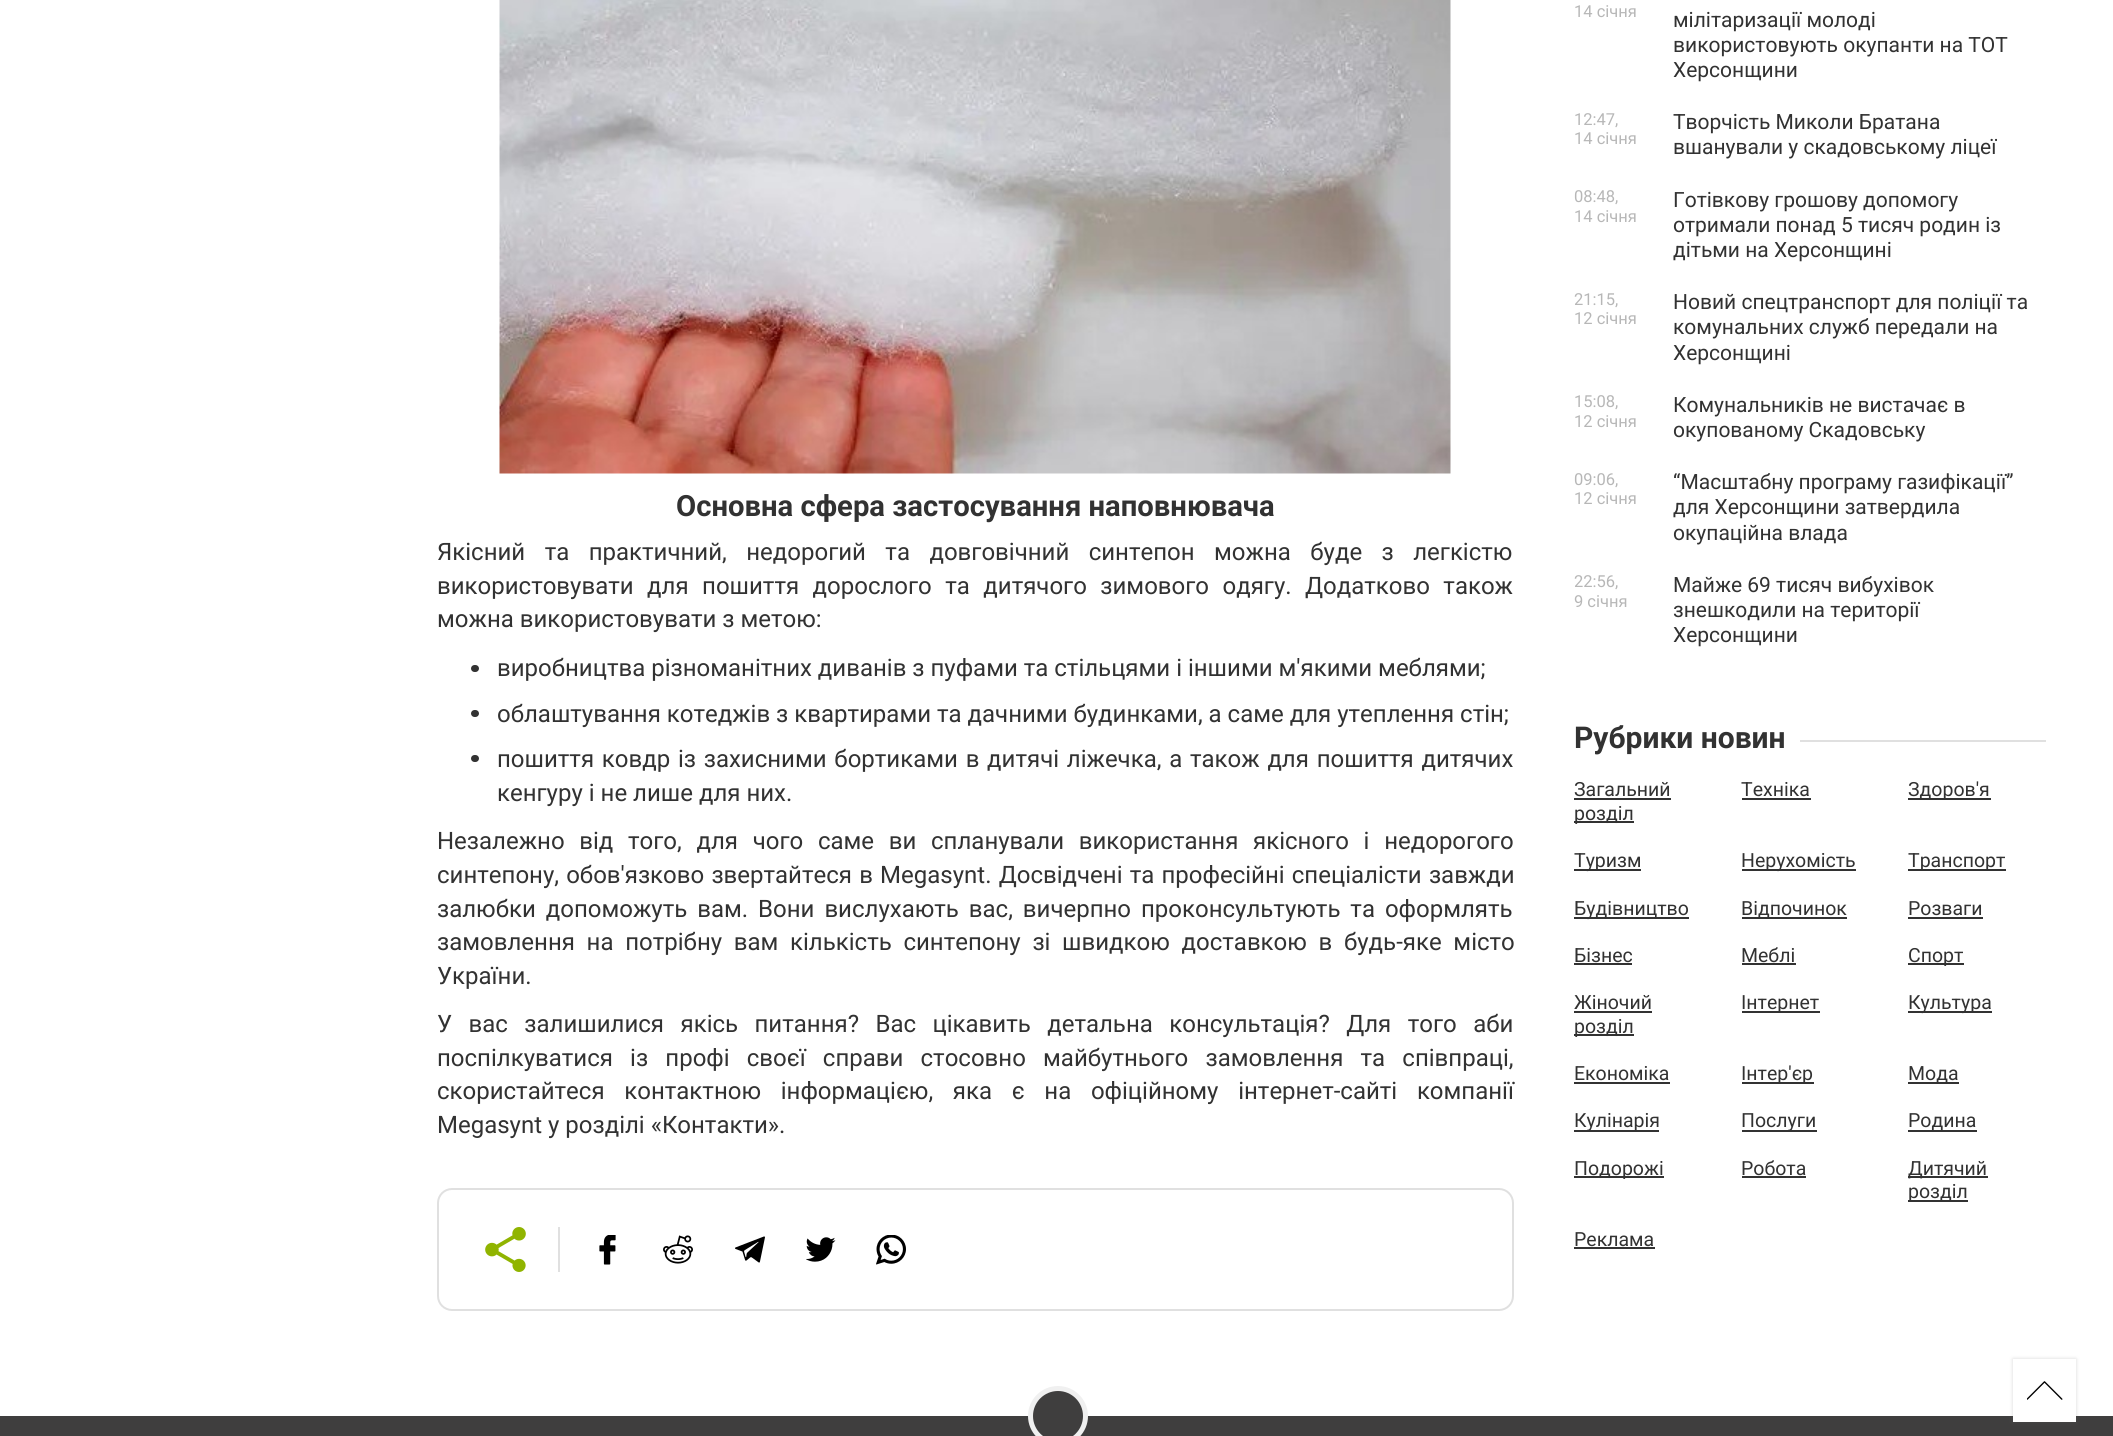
#include <cairo.h>
#include <math.h>
#include <stddef.h>

static cairo_t *c;
static void C(unsigned color){cairo_set_source_rgb(c, (color >> 16) / 255.0, (color >> 8 & 255) / 255.0, (color & 255) / 255.0);}
static void F(const char *family, double size, int italic, int bold){cairo_select_font_face(c, family, italic ? CAIRO_FONT_SLANT_ITALIC : CAIRO_FONT_SLANT_NORMAL,bold ? CAIRO_FONT_WEIGHT_BOLD : CAIRO_FONT_WEIGHT_NORMAL);cairo_set_font_size(c, size);}
static void T(double x, double y, const char *s){cairo_move_to(c, x, y);cairo_show_text(c, s);}
static void L(double x, double y, const char *s, double letter, double word){cairo_move_to(c, x, y);while (*s) {char ch[5] = {0};int n = 0;do ch[n++] = *s++; while ((*s & 0xC0) == 0x80);cairo_show_text(c, ch);cairo_rel_move_to(c, letter + word * (*ch == ' '), 0);}}
static void R(double x, double y, double w, double h){cairo_rectangle(c, x, y, w, h);cairo_fill(c);}
static void Q(double x, double y, double w, double h, double r){cairo_new_sub_path(c);cairo_arc(c, x + w - r, y + h - r, r, 0, M_PI / 2);cairo_arc(c, x + r, y + h - r, r, M_PI / 2, M_PI);cairo_arc(c, x + r, y + r, r, M_PI, 1.5 * M_PI);cairo_arc(c, x + w - r, y + r, r, 1.5 * M_PI, 2 * M_PI);cairo_close_path(c);}
static void S(double x, double y, double w, double h, double r, double blur, double alpha){cairo_push_group_with_content(c, CAIRO_CONTENT_ALPHA);cairo_set_operator(c, CAIRO_OPERATOR_SOURCE);for (int i = 15; i >= -15 && fmin(w, h) + blur * i / 3 > 0; i -= 2) {double e = blur * i / 6;cairo_set_source_rgba(c, 0, 0, 0, alpha * erfc((i - 1) / 8.5) / 2);Q(x - e, y - e, w + 2 * e, h + 2 * e, fmax(0, fmin(r + e + blur * .6, fmin(w, h) / 2 + e)));cairo_fill(c);}cairo_pattern_t *soft = cairo_pop_group(c);cairo_mask(c, soft);cairo_pattern_destroy(soft);}
static void I(const char *path, double x, double y, double w, double h){cairo_surface_t *image = cairo_image_surface_create_from_png(path);cairo_save(c);cairo_set_source_surface(c, image, x, y);cairo_rectangle(c, x, y, w, h);cairo_fill(c);cairo_restore(c);cairo_surface_destroy(image);}
int main(void) {
cairo_surface_t *surface = cairo_image_surface_create(CAIRO_FORMAT_RGB24, 2113, 1436);
c = cairo_create(surface);
cairo_font_options_t *options = cairo_font_options_create();
cairo_font_options_set_hint_metrics(options, CAIRO_HINT_METRICS_OFF);
cairo_font_options_set_hint_style(options, CAIRO_HINT_STYLE_NONE);
cairo_set_font_options(c, options);
cairo_set_miter_limit(c, 4);
C(0xffffff);
cairo_paint(c);
I("1.png",499,0,952,474);
F("Roboto",29.25,0,1);
C(0x323232);
T(676,516,"Основна сфера застосування наповнювача");
F("Roboto",24,0,0);
L(437,560,"Якісний та практичний, недорогий та довговічний синтепон можна буде з легкістю",0,13.5);
L(437,594,"використовувати для пошиття дорослого та дитячого зимового одягу. Додатково також",0,7.5);
T(437,627,"можна використовувати з метою:");
Q(471,665,8,7,3.5);
cairo_fill(c);
T(497,676,"виробництва різноманітних диванів з пуфами та стільцями і іншими м'якими меблями;");
Q(471,710,8,7,3.5);
cairo_fill(c);
T(497,722,"облаштування котеджів з квартирами та дачними будинками, а саме для утеплення стін;");
Q(471,755,8,7,3.5);
cairo_fill(c);
L(497,767,"пошиття ковдр із захисними бортиками в дитячі ліжечка, а також для пошиття дитячих",0,1.8);
T(497,801,"кенгуру і не лише для них.");
L(437,849,"Незалежно від того, для чого саме ви спланували використання якісного і недорогого",0,8.75);
L(437,883,"синтепону, обов'язково звертайтеся в Megasynt. Досвідчені та професійні спеціалісти завжди",0,1.25);
L(437,917,"залюбки допоможуть вам. Вони вислухають вас, вичерпно проконсультують та оформлять",0,4);
L(437,950,"замовлення на потрібну вам кількість синтепону зі швидкою доставкою в будь-яке місто",0,5.75);
T(437,984,"України.");
L(437,1032,"У вас залишилися якісь питання? Вас цікавить детальна консультація? Для того аби",0,10.5);
L(437,1066,"поспілкуватися із профі своєї справи стосовно майбутнього замовлення та співпраці,",0,11.25);
L(437,1099,"скористайтеся контактною інформацією, яка є на офіційному інтернет-сайті компанії",0,13.75);
T(437,1133,"Megasynt у розділі «Контакти».");
Q(438,1189,1075,121,14);
C(0xe0e0e0);
cairo_stroke(c);
R(558,1227,2,45);
I("2.png",485,1227,41,45);
I("3.png",599,1235,17,30);
I("4.png",663,1235,30,29);
I("5.png",735,1236,30,27);
I("6.png",806,1237,30,25);
I("7.png",876,1235,30,30);
F("Roboto",16.5,0,0);
C(0xb7b7b7);
T(1574,17,"14 січня");
F("Roboto",21,0,0);
C(0x323232);
T(1673,27,"мілітаризації молоді");
T(1673,52,"використовують окупанти на ТОТ");
T(1673,77,"Херсонщини");
F("Roboto",16.5,0,0);
C(0xb7b7b7);
T(1574,125,"12:47,");
T(1574,144,"14 січня");
F("Roboto",21,0,0);
C(0x323232);
T(1673,129,"Творчість Миколи Братана");
T(1673,154,"вшанували у скадовському ліцеї");
F("Roboto",16.5,0,0);
C(0xb7b7b7);
T(1574,202,"08:48,");
T(1574,222,"14 січня");
F("Roboto",21,0,0);
C(0x323232);
T(1673,207,"Готівкову грошову допомогу");
T(1673,232,"отримали понад 5 тисяч родин із");
T(1673,257,"дітьми на Херсонщині");
F("Roboto",16.5,0,0);
C(0xb7b7b7);
T(1574,305,"21:15,");
T(1574,324,"12 січня");
F("Roboto",21,0,0);
C(0x323232);
T(1673,309,"Новий спецтранспорт для поліції та");
T(1673,334,"комунальних служб передали на");
T(1673,360,"Херсонщині");
F("Roboto",16.5,0,0);
C(0xb7b7b7);
T(1574,407,"15:08,");
T(1574,427,"12 січня");
F("Roboto",21,0,0);
C(0x323232);
T(1673,412,"Комунальників не вистачає в");
T(1673,437,"окупованому Скадовську");
F("Roboto",16.5,0,0);
C(0xb7b7b7);
T(1574,485,"09:06,");
T(1574,504,"12 січня");
F("Roboto",21,0,0);
C(0x323232);
T(1673,489,"“Масштабну програму газифікації”");
T(1673,514,"для Херсонщини затвердила");
T(1673,540,"окупаційна влада");
F("Roboto",16.5,0,0);
C(0xb7b7b7);
T(1574,587,"22:56,");
T(1574,607,"9 січня");
F("Roboto",21,0,0);
C(0x323232);
T(1673,592,"Майже 69 тисяч вибухівок");
T(1673,617,"знешкодили на території");
T(1673,642,"Херсонщини");
F("Roboto",30,0,1);
T(1574,748,"Рубрики новин");
C(0xe0e0e0);
R(1800,740,246,2);
F("Roboto",19.5,0,0);
C(0x323232);
T(1574,796,"Загальний");
R(1574,798,97,2);
R(1574,821,60,2);
T(1574,820,"розділ");
T(1741,796,"Техніка");
R(1742,798,69,2);
R(1908,798,83,2);
T(1908,796,"Здоров'я");
R(1574,869,67,2);
T(1574,867,"Туризм");
R(1742,869,114,2);
T(1741,867,"Нерухомість");
R(1908,869,98,2);
T(1908,867,"Транспорт");
R(1574,917,115,2);
T(1574,915,"Будівництво");
R(1742,917,105,2);
T(1741,915,"Відпочинок");
T(1908,915,"Розваги");
R(1908,917,75,2);
T(1574,962,"Бізнес");
R(1574,963,58,2);
T(1741,962,"Меблі");
R(1742,963,54,2);
R(1908,963,56,2);
T(1908,962,"Спорт");
T(1574,1009,"Жіночий");
R(1574,1011,78,2);
R(1574,1034,60,2);
T(1574,1033,"розділ");
R(1742,1011,78,2);
T(1741,1009,"Інтернет");
R(1908,1011,84,2);
T(1908,1009,"Культура");
T(1574,1080,"Економіка");
R(1574,1082,96,2);
R(1742,1082,72,2);
T(1741,1080,"Інтер'єр");
R(1908,1082,51,2);
T(1908,1080,"Мода");
R(1574,1130,85,2);
T(1574,1127,"Кулінарія");
R(1742,1130,75,2);
T(1741,1127,"Послуги");
R(1908,1130,69,2);
T(1908,1127,"Родина");
R(1574,1176,90,2);
T(1574,1175,"Подорожі");
T(1741,1175,"Робота");
R(1742,1176,64,2);
R(1908,1176,80,2);
T(1908,1175,"Дитячий");
R(1908,1200,60,2);
T(1908,1198,"розділ");
T(1574,1246,"Реклама");
R(1574,1247,81,2);
C(0x3f3e3e);
R(0,1416,2113,20);
C(0x636363);
S(2013,1359,63,63,0,2,.25);
C(0xffffff);
R(2013,1359,63,63);
I("8.png",2027,1381,36,19);
C(0x3f3e3e);
cairo_arc(c,1058,1416,27.5,0,2 * M_PI);
cairo_fill_preserve(c);
C(0xf0f0f0);
cairo_set_line_width(c,5);
cairo_stroke(c);
cairo_surface_write_to_png(surface, "o.png");
cairo_font_options_destroy(options);
cairo_destroy(c);
cairo_surface_destroy(surface);
return 0;
}
